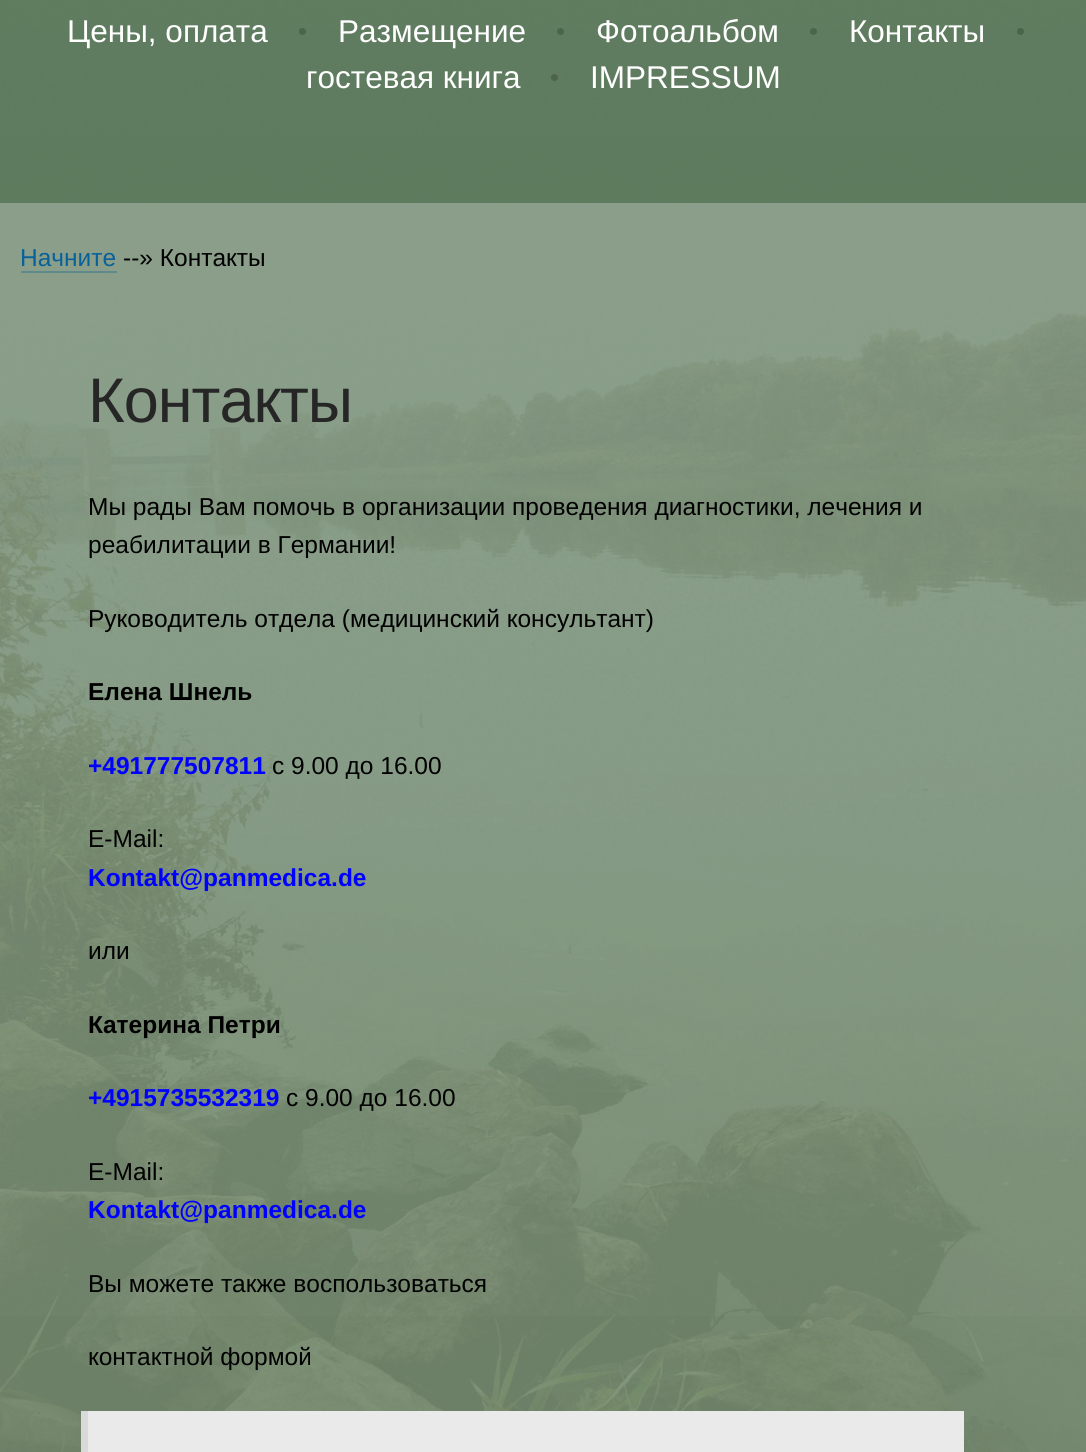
#include <cairo.h>
#include <math.h>
#include <stddef.h>

static cairo_t *c;
static void C(unsigned color){cairo_set_source_rgb(c, (color >> 16) / 255.0, (color >> 8 & 255) / 255.0, (color & 255) / 255.0);}
static void F(const char *family, double size, int italic, int bold){cairo_select_font_face(c, family, italic ? CAIRO_FONT_SLANT_ITALIC : CAIRO_FONT_SLANT_NORMAL,bold ? CAIRO_FONT_WEIGHT_BOLD : CAIRO_FONT_WEIGHT_NORMAL);cairo_set_font_size(c, size);}
static void T(double x, double y, const char *s){cairo_move_to(c, x, y);cairo_show_text(c, s);}
static void L(double x, double y, const char *s, double letter, double word){cairo_move_to(c, x, y);while (*s) {char ch[5] = {0};int n = 0;do ch[n++] = *s++; while ((*s & 0xC0) == 0x80);cairo_show_text(c, ch);cairo_rel_move_to(c, letter + word * (*ch == ' '), 0);}}
static void R(double x, double y, double w, double h){cairo_rectangle(c, x, y, w, h);cairo_fill(c);}
static void I(const char *path, double x, double y, double w, double h){cairo_surface_t *image = cairo_image_surface_create_from_png(path);cairo_save(c);cairo_set_source_surface(c, image, x, y);cairo_rectangle(c, x, y, w, h);cairo_fill(c);cairo_restore(c);cairo_surface_destroy(image);}
int main(void) {
cairo_surface_t *surface = cairo_image_surface_create(CAIRO_FORMAT_RGB24, 1086, 1452);
c = cairo_create(surface);
cairo_font_options_t *options = cairo_font_options_create();
cairo_font_options_set_hint_metrics(options, CAIRO_HINT_METRICS_OFF);
cairo_font_options_set_hint_style(options, CAIRO_HINT_STYLE_NONE);
cairo_set_font_options(c, options);
cairo_set_miter_limit(c, 4);
C(0xffffff);
cairo_paint(c);
I("1.png",0,0,1086,1452);
I("2.png",0,0,1086,1316);
F("Liberation Sans",31.5,0,0);
C(0xffffff);
T(67,42,"Цены, оплата");
C(0x4d644c);
cairo_new_path(c);
cairo_arc(c,302.5,31.5,3.5,0,2 * M_PI);
cairo_fill(c);
C(0xffffff);
T(338,42,"Размещение");
C(0x4d644c);
cairo_new_path(c);
cairo_arc(c,560.5,31.5,3.5,0,2 * M_PI);
cairo_fill(c);
C(0xffffff);
T(596,42,"Фотоальбом");
C(0x4d644c);
cairo_new_path(c);
cairo_arc(c,813.5,31.5,3.5,0,2 * M_PI);
cairo_fill(c);
C(0xffffff);
T(849,42,"Контакты");
C(0x4d644c);
cairo_new_path(c);
cairo_arc(c,1020.5,31.5,3.5,0,2 * M_PI);
cairo_fill(c);
C(0xffffff);
T(306,88,"гостевая книга");
C(0x4d634c);
cairo_new_path(c);
cairo_arc(c,554.5,77.5,3.5,0,2 * M_PI);
cairo_fill(c);
C(0xffffff);
T(590,88,"IMPRESSUM");
cairo_set_source_rgba(c,0.949,0.949,0.949,0.3);
R(0,203,1086,1249);
F("Liberation Sans",24.5,0,0);
C(0x086199);
T(20,266,"Начните");
C(0x5d898f);
R(21,271,96,2);
C(0x000000);
T(123,266,"--» Контакты");
F("Liberation Sans",63,0,0);
C(0x262626);
L(88,422,"Контакты",-1,0);
F("Liberation Sans",24.5,0,0);
C(0x000000);
T(88,515,"Мы рады Вам помочь в организации проведения диагностики, лечения и");
T(88,553,"реабилитации в Германии!");
T(88,627,"Руководитель отдела (медицинский консультант)");
F("Liberation Sans",24.5,0,1);
T(88,700,"Елена Шнель");
C(0x0000ff);
T(88,774,"+491777507811");
F("Liberation Sans",24.5,0,0);
C(0x000000);
T(272,774,"с 9.00 до 16.00");
T(88,847,"E-Mail:");
F("Liberation Sans",24.5,0,1);
C(0x0000ff);
T(88,886,"Kontakt@panmedica.de");
F("Liberation Sans",24.5,0,0);
C(0x000000);
T(88,959,"или");
F("Liberation Sans",24.5,0,1);
T(88,1033,"Катерина Петри");
C(0x0000ff);
T(88,1106,"+4915735532319");
F("Liberation Sans",24.5,0,0);
C(0x000000);
T(286,1106,"с 9.00 до 16.00");
T(88,1180,"E-Mail:");
F("Liberation Sans",24.5,0,1);
C(0x0000ff);
T(88,1218,"Kontakt@panmedica.de");
F("Liberation Sans",24.5,0,0);
C(0x000000);
T(88,1292,"Вы можете также воспользоваться");
T(88,1365,"контактной формой");
C(0xeaeaea);
R(88,1411,876,41);
C(0xd9d9d9);
R(81,1411,7,41);
cairo_surface_write_to_png(surface, "o.png");
cairo_font_options_destroy(options);
cairo_destroy(c);
cairo_surface_destroy(surface);
return 0;
}
